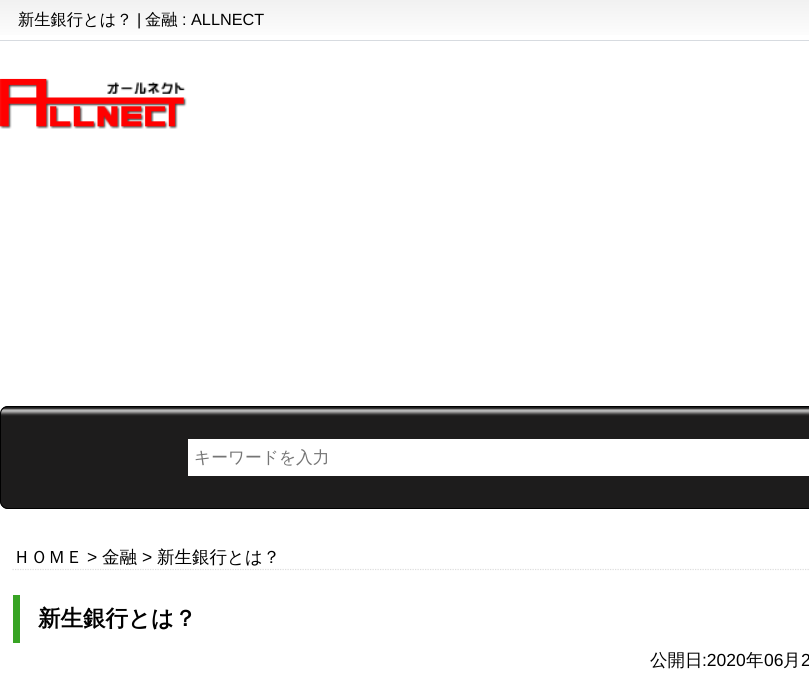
#include <cairo.h>
#include <math.h>
#include <stddef.h>

static cairo_t *c;
static void C(unsigned color){cairo_set_source_rgb(c, (color >> 16) / 255.0, (color >> 8 & 255) / 255.0, (color & 255) / 255.0);}
static void F(const char *family, double size, int italic, int bold){cairo_select_font_face(c, family, italic ? CAIRO_FONT_SLANT_ITALIC : CAIRO_FONT_SLANT_NORMAL,bold ? CAIRO_FONT_WEIGHT_BOLD : CAIRO_FONT_WEIGHT_NORMAL);cairo_set_font_size(c, size);}
static void T(double x, double y, const char *s){cairo_move_to(c, x, y);cairo_show_text(c, s);}
static void R(double x, double y, double w, double h){cairo_rectangle(c, x, y, w, h);cairo_fill(c);}
static void Q(double x, double y, double w, double h, double r){cairo_new_sub_path(c);cairo_arc(c, x + w - r, y + h - r, r, 0, M_PI / 2);cairo_arc(c, x + r, y + h - r, r, M_PI / 2, M_PI);cairo_arc(c, x + r, y + r, r, M_PI, 1.5 * M_PI);cairo_arc(c, x + w - r, y + r, r, 1.5 * M_PI, 2 * M_PI);cairo_close_path(c);}
static void I(const char *path, double x, double y, double w, double h){cairo_surface_t *image = cairo_image_surface_create_from_png(path);cairo_save(c);cairo_set_source_surface(c, image, x, y);cairo_rectangle(c, x, y, w, h);cairo_fill(c);cairo_restore(c);cairo_surface_destroy(image);}
int main(void) {
cairo_surface_t *surface = cairo_image_surface_create(CAIRO_FORMAT_RGB24, 809, 699);
c = cairo_create(surface);
cairo_font_options_t *options = cairo_font_options_create();
cairo_font_options_set_hint_metrics(options, CAIRO_HINT_METRICS_OFF);
cairo_font_options_set_hint_style(options, CAIRO_HINT_STYLE_NONE);
cairo_set_font_options(c, options);
cairo_set_miter_limit(c, 4);
cairo_pattern_t *gradient;
C(0xffffff);
cairo_paint(c);
gradient = cairo_pattern_create_linear(405,0,405,40);
cairo_pattern_add_color_stop_rgba(gradient,0,0.945,0.945,0.945,1);
cairo_pattern_add_color_stop_rgba(gradient,1,0.996,0.996,0.996,1);
cairo_set_source(c,gradient);
cairo_pattern_destroy(gradient);
R(0,0,809,35);
C(0xd7dbe0);
R(0,40,809,1);
F("WenQuanYi Zen Hei Medium",16.25,0,0);
C(0x000000);
T(18,25,"新生銀行とは？");
F("Liberation Sans",16.25,0,0);
T(137,25,"|");
F("WenQuanYi Zen Hei Medium",16.25,0,0);
T(145,25,"金融");
F("Liberation Sans",16.25,0,0);
T(182,25,": ALLNECT");
I("1.png",0,78,187,51);
C(0x1d1c1c);
Q(0,406,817,103,8);
cairo_fill(c);
I("2.png",0,407,809,9);
Q(.5,406.5,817,102,7.5);
C(0x000000);
cairo_set_line_width(c,1);
cairo_stroke(c);
C(0xffffff);
R(188,439,621,37);
F("WenQuanYi Zen Hei Medium",16.75,0,0);
C(0x757575);
T(194,463,"キーワードを入力");
cairo_new_path(c);
cairo_move_to(c,12.5,569.5);
cairo_line_to(c,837.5,569.5);
C(0xdddddd);
cairo_set_line_width(c,1.2);
cairo_set_dash(c,(double[]){1.25,1.25},2,0);
cairo_stroke(c);
F("WenQuanYi Zen Hei Medium",17.5,0,0);
C(0x000000);
T(13,563,"ＨＯＭＥ");
F("Liberation Sans",17.5,0,0);
T(87,563,">");
F("WenQuanYi Zen Hei Medium",17.5,0,0);
T(102,563,"金融");
F("Liberation Sans",17.5,0,0);
T(142,563,">");
F("WenQuanYi Zen Hei Medium",17.5,0,0);
T(157,563,"新生銀行とは？");
C(0x38a424);
R(13,595,7,48);
F("WenQuanYi Zen Hei",22.5,0,1);
C(0x000000);
T(38,626,"新生銀行とは？");
F("WenQuanYi Zen Hei Medium",17.5,0,0);
T(650,666,"公開日");
F("Liberation Sans",17.5,0,0);
T(702,666,":2020");
F("WenQuanYi Zen Hei Medium",17.5,0,0);
T(746,666,"年");
F("Liberation Sans",17.5,0,0);
T(764,666,"06");
F("WenQuanYi Zen Hei Medium",17.5,0,0);
T(783,666,"月");
F("Liberation Sans",17.5,0,0);
T(801,666,"2");
cairo_surface_write_to_png(surface, "o.png");
cairo_font_options_destroy(options);
cairo_destroy(c);
cairo_surface_destroy(surface);
return 0;
}
